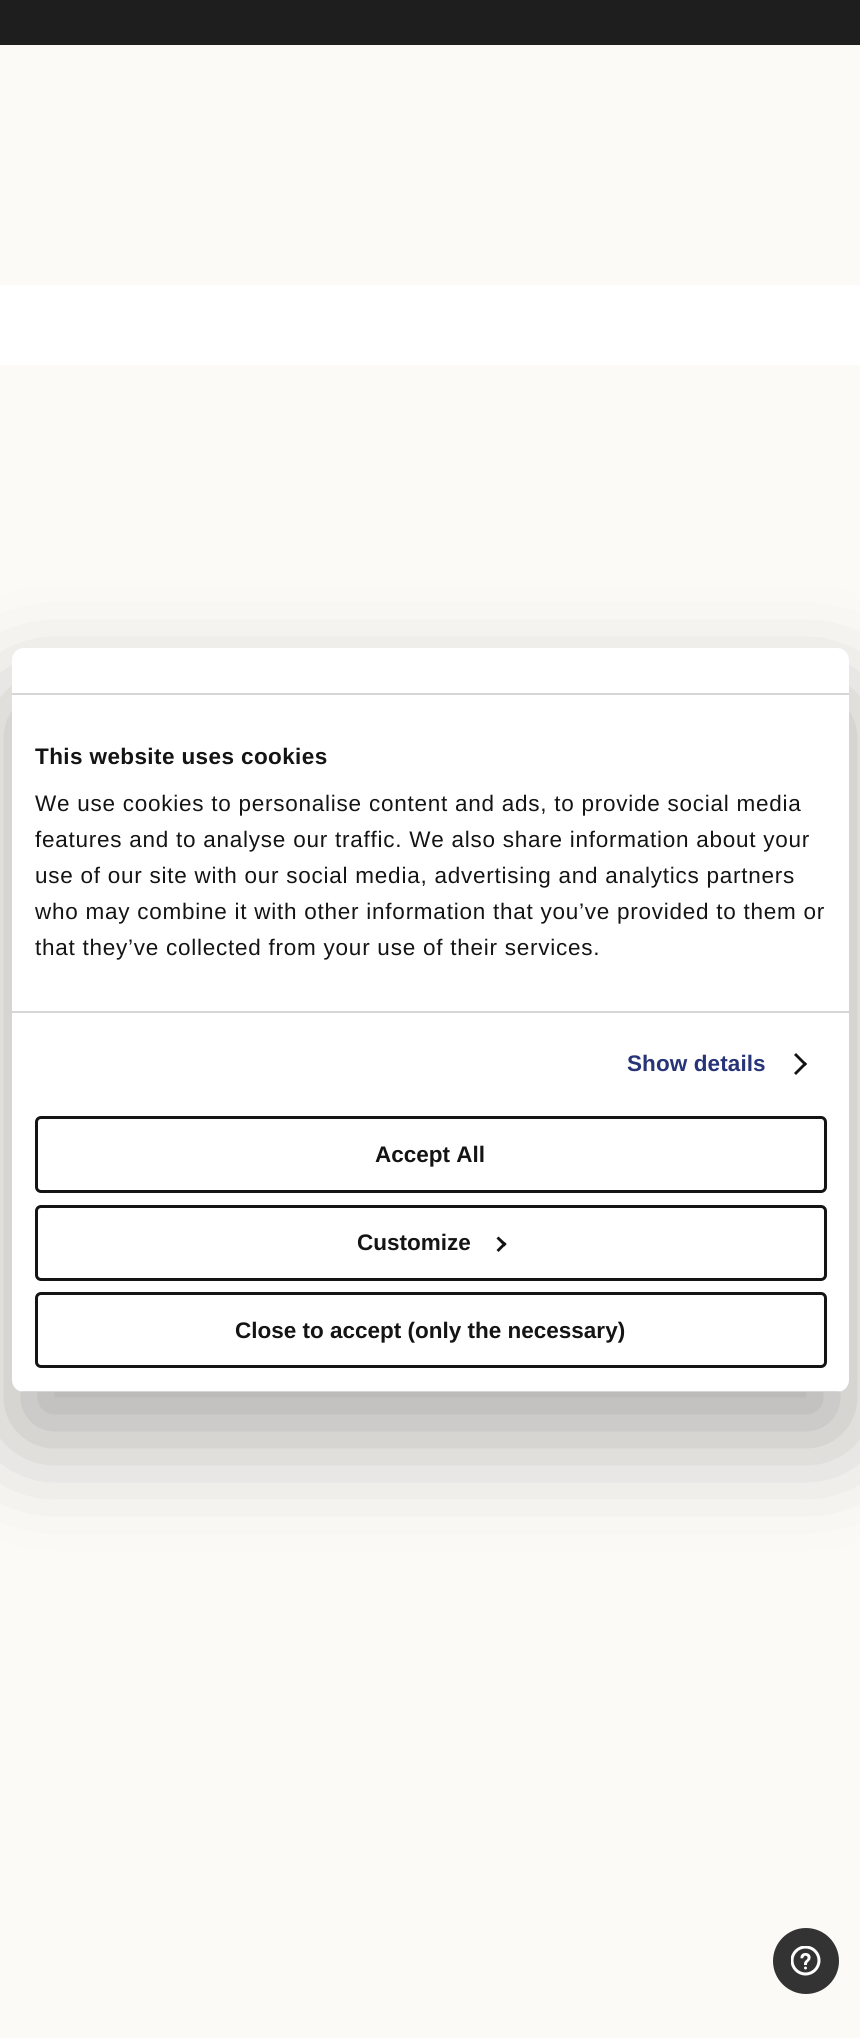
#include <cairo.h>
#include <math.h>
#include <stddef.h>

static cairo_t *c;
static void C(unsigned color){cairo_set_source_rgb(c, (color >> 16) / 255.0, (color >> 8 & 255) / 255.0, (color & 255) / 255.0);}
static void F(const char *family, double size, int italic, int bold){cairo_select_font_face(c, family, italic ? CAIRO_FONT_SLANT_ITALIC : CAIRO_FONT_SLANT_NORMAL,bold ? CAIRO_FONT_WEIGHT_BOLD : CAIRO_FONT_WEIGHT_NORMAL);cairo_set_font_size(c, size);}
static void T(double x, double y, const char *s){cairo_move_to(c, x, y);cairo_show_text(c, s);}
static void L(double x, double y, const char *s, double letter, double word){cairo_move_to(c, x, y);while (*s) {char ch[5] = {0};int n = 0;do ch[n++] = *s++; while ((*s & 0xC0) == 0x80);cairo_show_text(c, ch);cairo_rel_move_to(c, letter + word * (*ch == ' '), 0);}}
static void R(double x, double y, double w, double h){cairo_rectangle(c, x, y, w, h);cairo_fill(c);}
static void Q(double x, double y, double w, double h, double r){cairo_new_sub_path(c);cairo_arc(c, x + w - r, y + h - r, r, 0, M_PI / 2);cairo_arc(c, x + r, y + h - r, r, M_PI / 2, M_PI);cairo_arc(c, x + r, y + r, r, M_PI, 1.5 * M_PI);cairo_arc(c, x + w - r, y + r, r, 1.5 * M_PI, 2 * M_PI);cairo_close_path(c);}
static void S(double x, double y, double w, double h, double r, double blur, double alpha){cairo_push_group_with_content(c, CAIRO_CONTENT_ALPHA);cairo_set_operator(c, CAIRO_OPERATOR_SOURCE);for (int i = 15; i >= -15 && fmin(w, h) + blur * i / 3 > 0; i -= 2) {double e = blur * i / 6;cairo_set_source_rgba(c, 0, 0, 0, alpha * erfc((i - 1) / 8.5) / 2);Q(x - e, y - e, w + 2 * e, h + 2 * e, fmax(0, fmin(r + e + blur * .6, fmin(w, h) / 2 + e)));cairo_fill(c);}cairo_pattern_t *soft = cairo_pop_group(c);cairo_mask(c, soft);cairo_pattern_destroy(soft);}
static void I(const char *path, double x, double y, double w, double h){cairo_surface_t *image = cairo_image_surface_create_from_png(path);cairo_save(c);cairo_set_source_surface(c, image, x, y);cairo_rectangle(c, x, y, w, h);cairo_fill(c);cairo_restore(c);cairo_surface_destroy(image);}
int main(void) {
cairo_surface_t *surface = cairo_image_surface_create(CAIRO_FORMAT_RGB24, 860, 2038);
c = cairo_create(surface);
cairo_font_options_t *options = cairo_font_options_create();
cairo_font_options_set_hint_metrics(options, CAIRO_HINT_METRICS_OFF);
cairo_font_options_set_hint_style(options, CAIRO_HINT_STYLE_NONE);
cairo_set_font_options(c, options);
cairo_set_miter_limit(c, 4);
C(0xfcfaf7);
cairo_paint(c);
C(0x1e1e1e);
R(0,0,860,45);
C(0xffffff);
R(0,285,860,80);
C(0x000000);
S(12,696,837,744,12,51,.3);
C(0xffffff);
Q(12,648,837,744,12);
cairo_fill(c);
C(0xd6d6d6);
R(12,693,837,2);
R(12,1011,837,2);
F("Liberation Sans",22.5,0,1);
C(0x141414);
L(35,764,"This website uses cookies",.4,0);
F("Liberation Sans",22.5,0,0);
L(35,811,"We use cookies to personalise content and ads, to provide social media",.75,0);
L(35,847,"features and to analyse our traffic. We also share information about your",.75,0);
L(35,883,"use of our site with our social media, advertising and analytics partners",.75,0);
L(35,919,"who may combine it with other information that you’ve provided to them or",.75,0);
L(35,955,"that they’ve collected from your use of their services.",.75,0);
F("Liberation Sans",22.5,0,1);
C(0x273477);
L(627,1071,"Show details",.1,0);
C(0x141414);
cairo_new_path(c);
cairo_move_to(c,796,1053);
cairo_line_to(c,807,1064);
cairo_line_to(c,805,1066);
cairo_line_to(c,794,1055);
cairo_close_path(c);
cairo_fill(c);
cairo_new_path(c);
cairo_move_to(c,805,1062);
cairo_line_to(c,807,1064);
cairo_line_to(c,796,1075);
cairo_line_to(c,794,1073);
cairo_close_path(c);
cairo_fill(c);
cairo_save(c);
Q(12,648,837,744,12);
cairo_clip(c);
C(0xd6d6d6);
R(12,1391,837,1);
cairo_restore(c);
Q(36.5,1117.5,789,74,4.5);
cairo_set_line_width(c,3);
cairo_stroke(c);
T(375,1162,"Accept All");
Q(36.5,1206.5,789,73,4.5);
cairo_stroke(c);
T(357,1250,"Customize");
cairo_new_path(c);
cairo_move_to(c,498.5,1236.5);
cairo_line_to(c,506.5,1244);
cairo_line_to(c,504.5,1246.5);
cairo_line_to(c,496.5,1238.5);
cairo_close_path(c);
cairo_fill(c);
cairo_new_path(c);
cairo_move_to(c,504.5,1242);
cairo_line_to(c,506.5,1244);
cairo_line_to(c,498.5,1252);
cairo_line_to(c,496.5,1250);
cairo_close_path(c);
cairo_fill(c);
Q(36.5,1293.5,789,73,4.5);
cairo_stroke(c);
T(235,1338,"Close to accept (only the necessary)");
C(0x333333);
cairo_new_path(c);
cairo_arc(c,806,1961,33,0,2 * M_PI);
cairo_fill(c);
I("1.png",791,1946,30,30);
cairo_surface_write_to_png(surface, "o.png");
cairo_font_options_destroy(options);
cairo_destroy(c);
cairo_surface_destroy(surface);
return 0;
}
